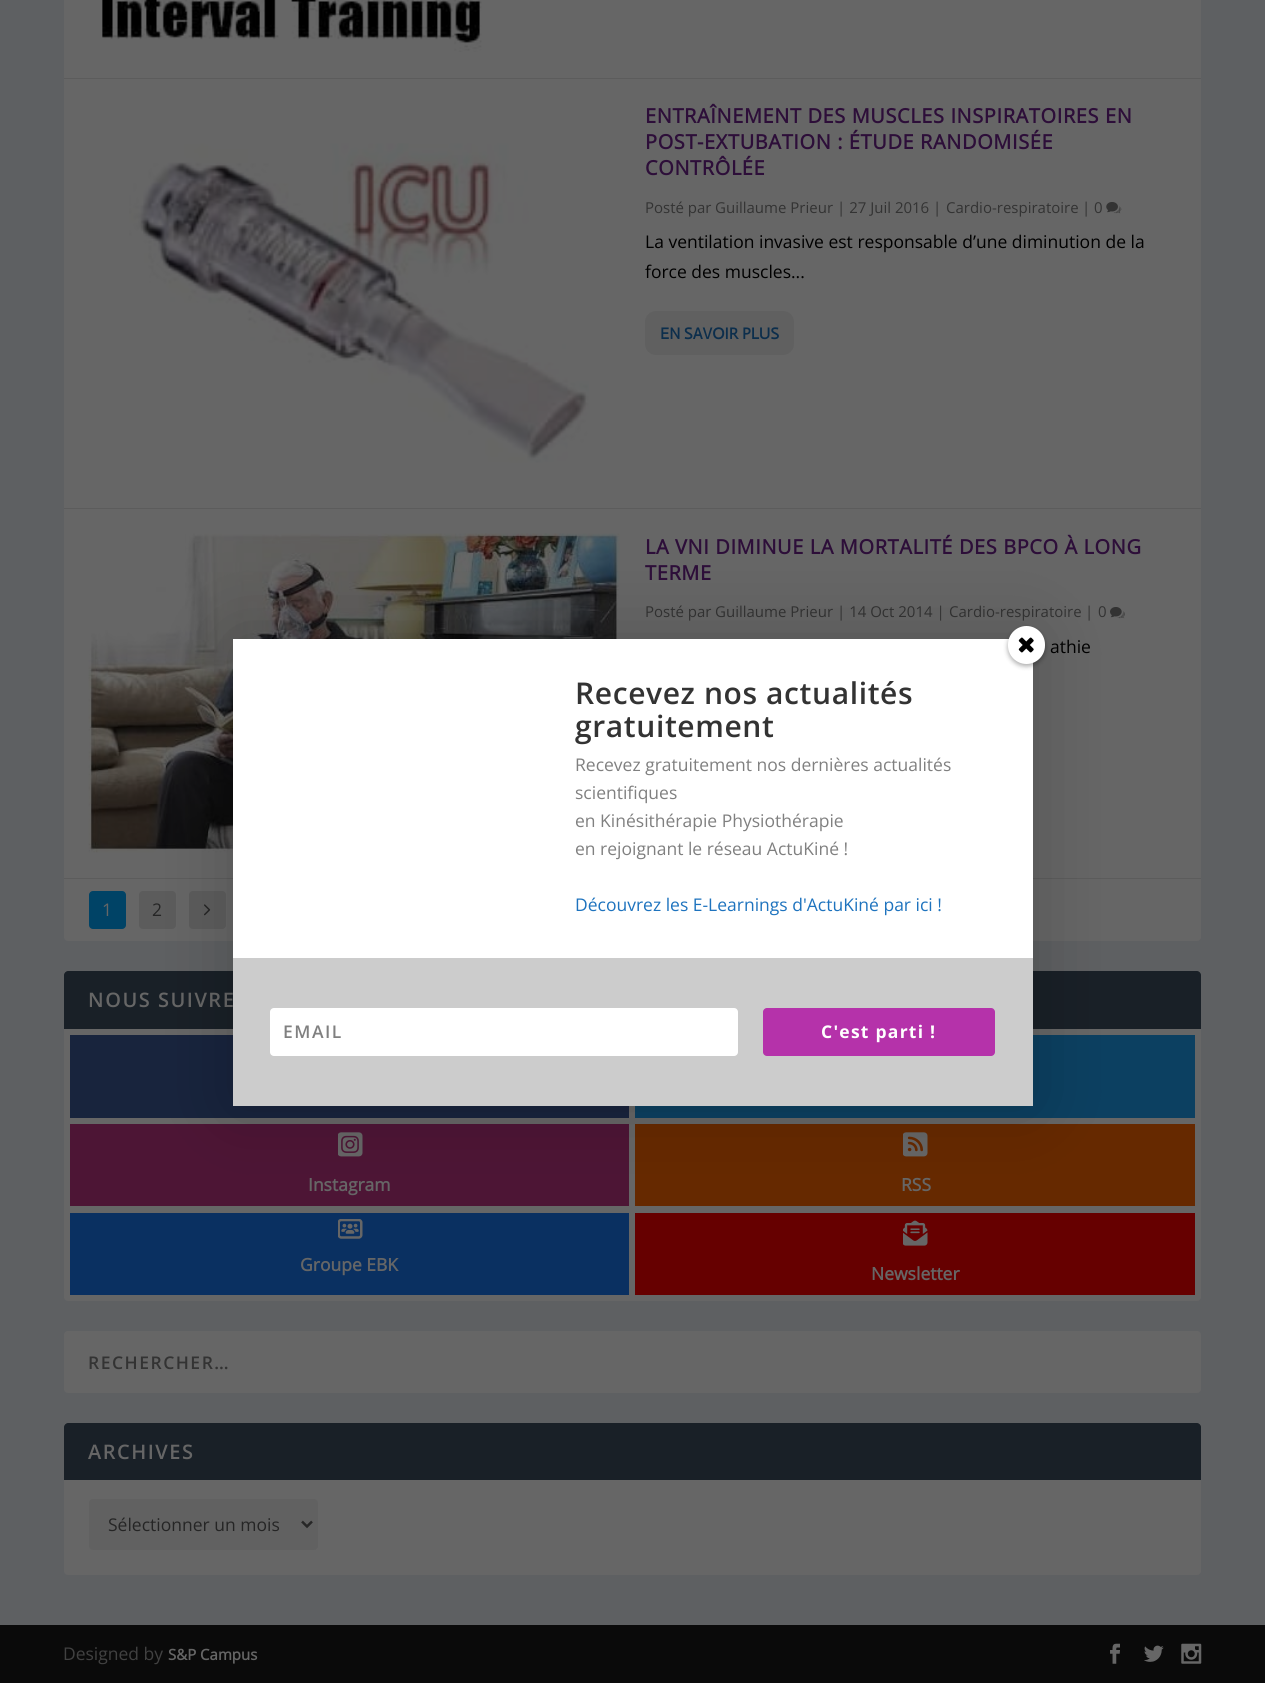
#include <cairo.h>
#include <math.h>
#include <stddef.h>

static cairo_t *c;
static void C(unsigned color){cairo_set_source_rgb(c, (color >> 16) / 255.0, (color >> 8 & 255) / 255.0, (color & 255) / 255.0);}
static void F(const char *family, double size, int italic, int bold){cairo_select_font_face(c, family, italic ? CAIRO_FONT_SLANT_ITALIC : CAIRO_FONT_SLANT_NORMAL,bold ? CAIRO_FONT_WEIGHT_BOLD : CAIRO_FONT_WEIGHT_NORMAL);cairo_set_font_size(c, size);}
static void T(double x, double y, const char *s){cairo_move_to(c, x, y);cairo_show_text(c, s);}
static void L(double x, double y, const char *s, double letter, double word){cairo_move_to(c, x, y);while (*s) {char ch[5] = {0};int n = 0;do ch[n++] = *s++; while ((*s & 0xC0) == 0x80);cairo_show_text(c, ch);cairo_rel_move_to(c, letter + word * (*ch == ' '), 0);}}
static void R(double x, double y, double w, double h){cairo_rectangle(c, x, y, w, h);cairo_fill(c);}
static void Q(double x, double y, double w, double h, double r){cairo_new_sub_path(c);cairo_arc(c, x + w - r, y + h - r, r, 0, M_PI / 2);cairo_arc(c, x + r, y + h - r, r, M_PI / 2, M_PI);cairo_arc(c, x + r, y + r, r, M_PI, 1.5 * M_PI);cairo_arc(c, x + w - r, y + r, r, 1.5 * M_PI, 2 * M_PI);cairo_close_path(c);}
static void S(double x, double y, double w, double h, double r, double blur, double alpha){cairo_push_group_with_content(c, CAIRO_CONTENT_ALPHA);cairo_set_operator(c, CAIRO_OPERATOR_SOURCE);for (int i = 15; i >= -15 && fmin(w, h) + blur * i / 3 > 0; i -= 2) {double e = blur * i / 6;cairo_set_source_rgba(c, 0, 0, 0, alpha * erfc((i - 1) / 8.5) / 2);Q(x - e, y - e, w + 2 * e, h + 2 * e, fmax(0, fmin(r + e + blur * .6, fmin(w, h) / 2 + e)));cairo_fill(c);}cairo_pattern_t *soft = cairo_pop_group(c);cairo_mask(c, soft);cairo_pattern_destroy(soft);}
static void I(const char *path, double x, double y, double w, double h){cairo_surface_t *image = cairo_image_surface_create_from_png(path);cairo_save(c);cairo_set_source_surface(c, image, x, y);cairo_rectangle(c, x, y, w, h);cairo_fill(c);cairo_restore(c);cairo_surface_destroy(image);}
int main(void) {
cairo_surface_t *surface = cairo_image_surface_create(CAIRO_FORMAT_RGB24, 1265, 1683);
c = cairo_create(surface);
cairo_font_options_t *options = cairo_font_options_create();
cairo_font_options_set_hint_metrics(options, CAIRO_HINT_METRICS_OFF);
cairo_font_options_set_hint_style(options, CAIRO_HINT_STYLE_NONE);
cairo_set_font_options(c, options);
cairo_set_miter_limit(c, 4);
C(0x5e6062);
cairo_paint(c);
C(0x666666);
Q(64,-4,1137,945,4);
cairo_fill(c);
C(0x5c5c5c);
R(64,78,1137,1);
I("1.png",102,0,380,52);
R(64,508,1137,1);
I("2.png",129,143,460,320);
F("Open Sans",20,0,1);
C(0x2d0e39);
L(645,123,"ENTRAÎNEMENT DES MUSCLES INSPIRATOIRES EN",.6,0);
L(645,149,"POST-EXTUBATION : ÉTUDE RANDOMISÉE",.6,0);
L(645,175,"CONTRÔLÉE",.6,0);
F("Open Sans",15,0,0);
C(0x333333);
T(645,213,"Posté par");
F("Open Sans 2",15,0,0);
T(715,213,"Guillaume Prieur");
F("Open Sans",15,0,0);
T(837,213,"| 27 Juil 2016 |");
F("Open Sans 2",15,0,0);
T(946,213,"Cardio-respiratoire");
F("Open Sans",15,0,0);
T(1082,213,"|");
F("Open Sans 2",15,0,0);
T(1094,213,"0");
I("3.png",1106,202,16,12);
F("Open Sans",17.5,0,0);
C(0x000000);
T(645,248,"La ventilation invasive est responsable d’une diminution de la");
T(645,278,"force des muscles...");
C(0x606060);
Q(645,311,149,44,11);
cairo_fill(c);
F("Actor",16.25,0,1);
C(0x0c2e4c);
T(660,339,"EN SAVOIR PLUS");
C(0x5c5c5c);
R(64,878,1137,1);
I("4.png",88,533,532,320);
F("Open Sans",20,0,1);
C(0x2d0e39);
L(645,554,"LA VNI DIMINUE LA MORTALITÉ DES BPCO À LONG",.6,0);
L(645,580,"TERME",.6,0);
F("Open Sans",15,0,0);
C(0x333333);
T(645,617,"Posté par");
F("Open Sans 2",15,0,0);
T(715,617,"Guillaume Prieur");
F("Open Sans",15,0,0);
T(837,617,"| 14 Oct 2014 |");
F("Open Sans 2",15,0,0);
T(949,617,"Cardio-respiratoire");
F("Open Sans",15,0,0);
T(1085,617,"|");
F("Open Sans 2",15,0,0);
T(1098,617,"0");
I("5.png",1110,607,15,12);
F("Open Sans",17.5,0,0);
C(0x000000);
T(1050,653,"athie");
C(0x004366);
Q(89,891,37,38,4);
cairo_fill(c);
C(0x666666);
T(102,916,"1");
C(0x5c5c5c);
Q(139,891,37,38,4);
cairo_fill(c);
F("Open Sans 2",17.5,0,0);
C(0x252525);
T(152,916,"2");
C(0x5c5c5c);
Q(189,891,37,38,4);
cairo_fill(c);
I("6.png",204,904,7,12);
C(0x666666);
Q(64,971,1137,330,4);
cairo_fill(c);
C(0x192027);
cairo_new_path(c);
cairo_move_to(c,68,971);
cairo_line_to(c,1197,971);
cairo_curve_to(c,1199,971,1201,973,1201,975);
cairo_line_to(c,1201,1029);
cairo_line_to(c,64,1029);
cairo_line_to(c,64,975);
cairo_curve_to(c,64,973,66,971,68,971);
cairo_close_path(c);
cairo_fill(c);
F("Open Sans SemiBold",20,0,0);
C(0x666666);
L(88,1007,"NOUS SUIVRE",1.5,0);
C(0x18243d);
R(70,1035,559,83);
C(0x0c4061);
R(635,1035,560,83);
C(0x4d1535);
R(70,1124,559,82);
I("7.png",338,1132,25,25);
F("Open Sans",17.5,0,1);
C(0x666666);
T(308,1191,"Instagram");
C(0x662900);
R(635,1124,560,82);
I("8.png",903,1132,25,25);
C(0x666666);
T(901,1191,"RSS");
C(0x0a3061);
R(70,1213,559,82);
I("9.png",338,1219,25,20);
C(0x666666);
T(300,1271,"Groupe EBK");
C(0x660000);
R(635,1213,560,82);
I("10.png",903,1220,25,26);
C(0x666666);
T(871,1280,"Newsletter");
Q(64,1331,1137,62,4);
cairo_fill(c);
F("Open Sans SemiBold",17.5,0,0);
C(0x333333);
L(88,1369,"RECHERCHER…",1.5,0);
C(0x666666);
Q(64,1423,1137,152,4);
cairo_fill(c);
C(0x192027);
cairo_new_path(c);
cairo_move_to(c,68,1423);
cairo_line_to(c,1197,1423);
cairo_curve_to(c,1199,1423,1201,1425,1201,1427);
cairo_line_to(c,1201,1480);
cairo_line_to(c,64,1480);
cairo_line_to(c,64,1427);
cairo_curve_to(c,64,1425,66,1423,68,1423);
cairo_close_path(c);
cairo_fill(c);
F("Open Sans SemiBold",20,0,0);
C(0x666666);
L(88,1459,"ARCHIVES",1.5,0);
C(0x616161);
Q(89,1499,229,51,4);
cairo_fill(c);
cairo_new_path(c);
cairo_move_to(c,302,1521.5);
cairo_line_to(c,307,1526.5);
cairo_line_to(c,312,1521.5);
C(0x272727);
cairo_set_line_width(c,2.5);
cairo_stroke(c);
F("Open Sans",17.5,0,0);
C(0x252525);
T(108,1531,"Sélectionner un mois");
C(0x0a0a0a);
R(0,1625,1265,58);
C(0x414141);
T(63,1660,"Designed by");
F("Open Sans",15,0,1);
C(0x666666);
T(168,1660,"S&P Campus");
I("11.png",1110,1643,10,21);
I("12.png",1144,1645,20,17);
I("13.png",1181,1643,21,21);
C(0x000000);
S(233,639,800,467,0,37.5,.2);
C(0xffffff);
R(233,639,800,319);
C(0x000000);
S(1008,629,37,37,18.5,2.5,.34);
C(0xffffff);
Q(1008,626,37,38,18.5);
cairo_fill(c);
I("14.png",1018,637,16,16);
F("Open Sans SemiBold",30,0,0);
C(0x333333);
L(575,704,"Recevez nos actualités",.6,0);
L(575,737,"gratuitement",.6,0);
F("Open Sans",17.5,0,0);
C(0x808080);
T(575,771,"Recevez gratuitement nos dernières actualités");
T(575,799,"scientifiques");
T(575,827,"en Kinésithérapie Physiothérapie");
T(575,855,"en rejoignant le réseau ActuKiné !");
C(0x1e73be);
T(575,911,"Découvrez les E-Learnings d'ActuKiné par ici !");
C(0xcccccc);
R(233,958,800,148);
C(0xffffff);
Q(270,1008,468,48,4);
cairo_fill(c);
F("Open Sans SemiBold",17.5,0,0);
C(0x808080);
L(283,1038,"EMAIL",1.5,0);
C(0xb532aa);
Q(763,1008,232,48,4);
cairo_fill(c);
F("Open Sans 2",17.5,0,1);
C(0xffffff);
L(821,1038,"C'est parti !",1.25,0);
cairo_surface_write_to_png(surface, "o.png");
cairo_font_options_destroy(options);
cairo_destroy(c);
cairo_surface_destroy(surface);
return 0;
}
